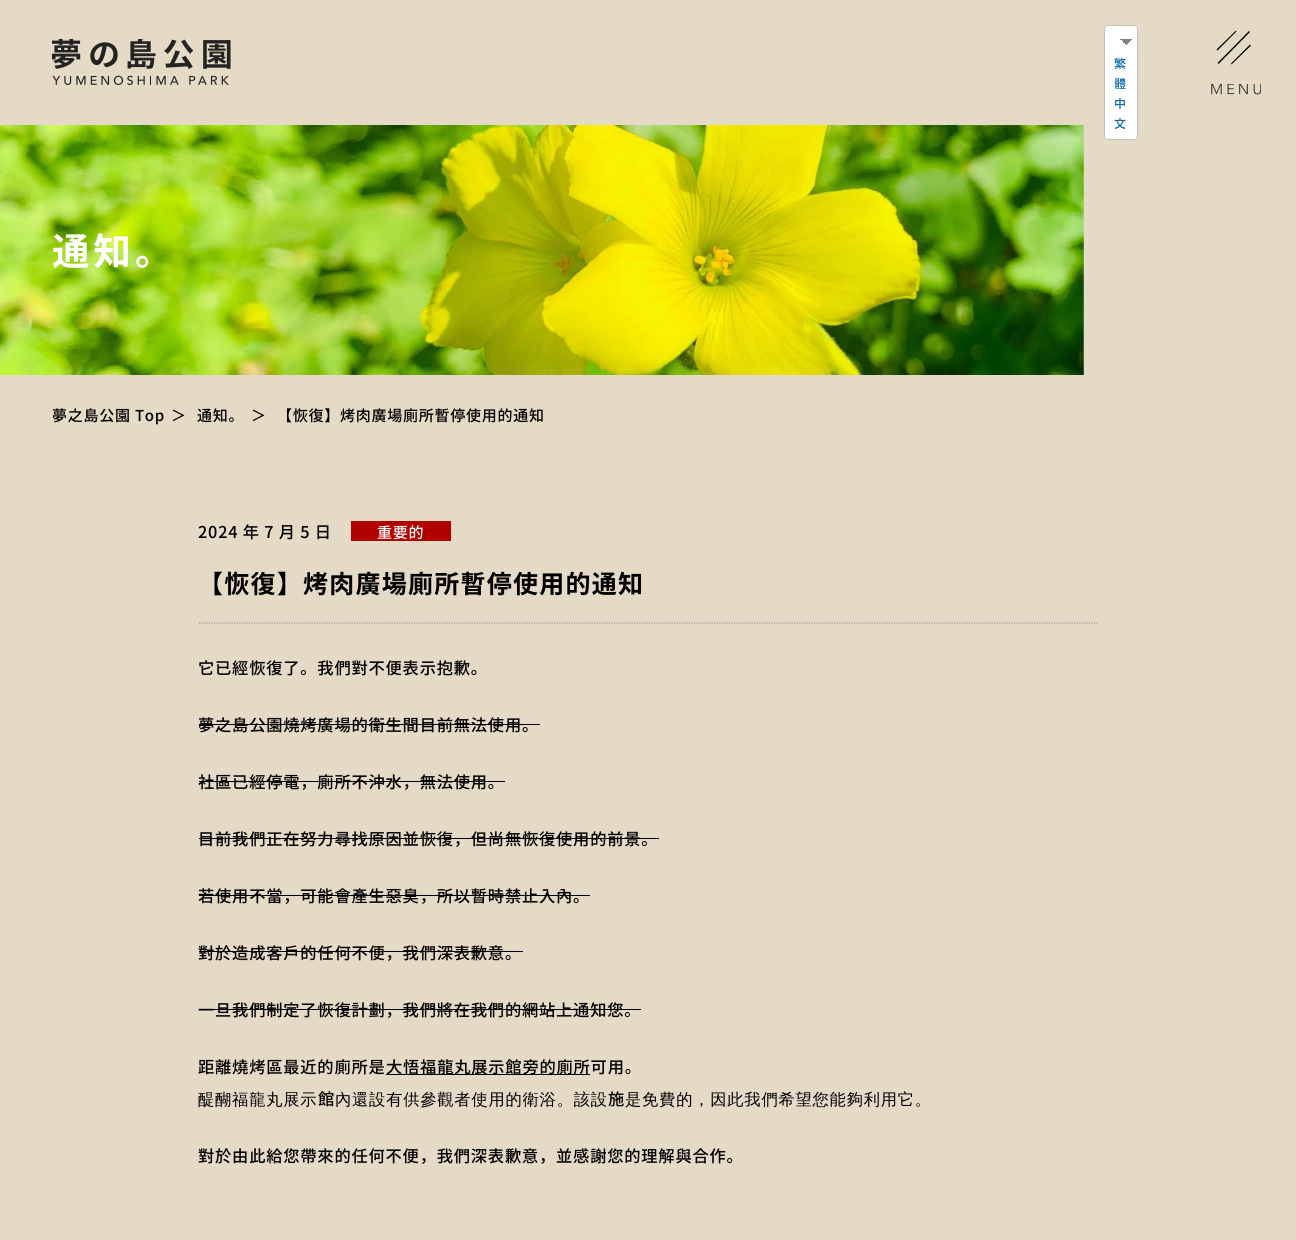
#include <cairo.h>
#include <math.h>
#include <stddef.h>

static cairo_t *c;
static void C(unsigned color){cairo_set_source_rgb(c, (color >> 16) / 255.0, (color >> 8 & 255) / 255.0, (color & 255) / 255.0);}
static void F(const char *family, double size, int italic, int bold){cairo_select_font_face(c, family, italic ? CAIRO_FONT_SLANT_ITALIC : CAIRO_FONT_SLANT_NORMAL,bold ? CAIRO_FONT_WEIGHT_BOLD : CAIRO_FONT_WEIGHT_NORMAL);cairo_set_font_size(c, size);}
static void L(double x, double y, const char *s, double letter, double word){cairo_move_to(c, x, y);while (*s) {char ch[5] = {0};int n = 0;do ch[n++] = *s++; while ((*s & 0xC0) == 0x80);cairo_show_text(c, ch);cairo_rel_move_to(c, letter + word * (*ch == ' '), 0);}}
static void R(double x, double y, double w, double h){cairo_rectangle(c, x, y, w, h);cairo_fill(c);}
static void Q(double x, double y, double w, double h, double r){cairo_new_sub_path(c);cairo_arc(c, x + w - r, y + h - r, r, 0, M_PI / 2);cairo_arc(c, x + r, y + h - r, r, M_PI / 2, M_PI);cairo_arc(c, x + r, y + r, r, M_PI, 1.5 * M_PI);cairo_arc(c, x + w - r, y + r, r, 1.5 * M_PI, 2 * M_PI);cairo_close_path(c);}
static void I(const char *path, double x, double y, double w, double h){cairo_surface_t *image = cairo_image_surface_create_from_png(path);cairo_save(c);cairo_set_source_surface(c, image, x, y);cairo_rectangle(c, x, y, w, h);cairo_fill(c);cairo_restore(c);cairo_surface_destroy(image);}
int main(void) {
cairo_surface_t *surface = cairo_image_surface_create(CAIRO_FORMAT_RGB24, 1296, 1240);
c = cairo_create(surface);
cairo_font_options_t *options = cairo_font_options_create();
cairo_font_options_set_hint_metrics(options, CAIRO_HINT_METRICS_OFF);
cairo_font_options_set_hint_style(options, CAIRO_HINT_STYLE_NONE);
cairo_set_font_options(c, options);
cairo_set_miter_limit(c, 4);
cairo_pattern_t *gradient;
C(0xe5dac5);
cairo_paint(c);
I("1.png",51,39,180,46);
C(0xffffff);
Q(1104,25,34,115,4);
cairo_fill(c);
gradient = cairo_pattern_create_linear(1126,39,1133,45);
cairo_pattern_add_color_stop_rgba(gradient,.5,0.502,0.502,0.502,1);
cairo_pattern_add_color_stop_rgba(gradient,.5,1,1,1,1);
cairo_set_source(c,gradient);
cairo_pattern_destroy(gradient);
R(1126,39,7,6);
gradient = cairo_pattern_create_linear(1120,45,1126,39);
cairo_pattern_add_color_stop_rgba(gradient,.5,1,1,1,1);
cairo_pattern_add_color_stop_rgba(gradient,.5,0.502,0.502,0.502,1);
cairo_set_source(c,gradient);
cairo_pattern_destroy(gradient);
R(1120,39,6,5);
Q(1104.5,25.5,33,114,3.5);
C(0xc1c1c1);
cairo_set_line_width(c,1);
cairo_stroke(c);
F("Noto Sans JP Medium",12,0,0);
C(0x0769ad);
L(1114,68,"繁",1.25,0);
L(1114,88,"體",1.25,0);
L(1114,108,"中",1.25,0);
L(1114,128,"文",1.25,0);
C(0x000000);
cairo_new_path(c);
cairo_move_to(c,1216.5,49.5);
cairo_line_to(c,1236,30.5);
cairo_line_to(c,1236.5,31.5);
cairo_line_to(c,1217.5,50.5);
cairo_close_path(c);
cairo_fill(c);
cairo_new_path(c);
cairo_move_to(c,1217.5,63);
cairo_line_to(c,1249,31);
cairo_line_to(c,1250,32);
cairo_line_to(c,1218.5,64);
cairo_close_path(c);
cairo_fill(c);
cairo_new_path(c);
cairo_move_to(c,1231,63.5);
cairo_line_to(c,1250,44.5);
cairo_line_to(c,1251,45.5);
cairo_line_to(c,1231.5,64.5);
cairo_close_path(c);
cairo_fill(c);
I("2.png",1211,84,50,11);
I("3.png",0,125,1084,250);
F("Noto Sans JP",37.5,0,1);
C(0xffffff);
L(52,265,"通知。",4,0);
F("Noto Sans JP Medium",15,0,0);
C(0x000000);
L(52,421,"夢之島公園 Top",.75,0);
L(171,421,"＞",.75,0);
L(197,421,"通知。",.75,0);
L(251,421,"＞",.75,0);
L(277,421,"【恢復】烤肉廣場廁所暫停使用的通知",.75,0);
F("Noto Sans JP Medium",16.25,0,0);
L(198,538,"2024 年 7 月 5 日",.8,0);
C(0xb10000);
R(351,521,100,20);
F("Noto Sans JP Medium",15,0,0);
C(0xffffff);
L(377,538,"重要的",.75,0);
cairo_new_path(c);
cairo_move_to(c,199,623);
cairo_line_to(c,1099,623);
C(0x989898);
cairo_set_line_width(c,1.2);
cairo_set_dash(c,(double[]){1.25,1.25},2,0);
cairo_stroke(c);
F("Noto Sans JP",25,0,1);
C(0x000000);
L(198,593,"【恢復】烤肉廣場廁所暫停使用的通知",1.25,0);
F("Noto Sans JP Medium",16.25,0,0);
L(198,674,"它已經恢復了。我們對不便表示抱歉。",.8,0);
L(198,731,"夢之島公園燒烤廣場的衛生間目前無法使用。",.8,0);
R(199,724,341,1);
L(198,788,"社區已經停電，廁所不沖水，無法使用。",.8,0);
R(199,781,306,1);
L(198,845,"目前我們正在努力尋找原因並恢復，但尚無恢復使用的前景。",.8,0);
R(199,838,460,1);
L(198,902,"若使用不當，可能會產生惡臭，所以暫時禁止入內。",.8,0);
R(199,895,391,1);
L(198,959,"對於造成客戶的任何不便，我們深表歉意。",.8,0);
R(199,951,324,1);
L(198,1016,"一旦我們制定了恢復計劃，我們將在我們的網站上通知您。",.8,0);
R(213,1009,428,1);
L(198,1073,"距離燒烤區最近的廁所是",.8,0);
R(386,1074,204,1);
L(386,1073,"大悟福龍丸展示館旁的廁所可用。",.8,0);
F("WenQuanYi Zen Hei Medium",16.25,0,0);
L(198,1105,"醍醐福龍丸展示",.8,0);
F("Noto Sans JP Medium",16.25,0,0);
L(318,1105,"館",.8,0);
F("WenQuanYi Zen Hei Medium",16.25,0,0);
L(335,1105,"內還設有供參觀者使用的衛浴。該設",.8,0);
F("Noto Sans JP Medium",16.25,0,0);
L(608,1105,"施",.8,0);
F("WenQuanYi Zen Hei Medium",16.25,0,0);
L(625,1105,"是免費的，因此我們希望您能夠利用它。",.8,0);
F("Noto Sans JP Medium",16.25,0,0);
L(198,1162,"對於由此給您帶來的任何不便，我們深表歉意，並感謝您的理解與合作。",.8,0);
cairo_surface_write_to_png(surface, "o.png");
cairo_font_options_destroy(options);
cairo_destroy(c);
cairo_surface_destroy(surface);
return 0;
}
